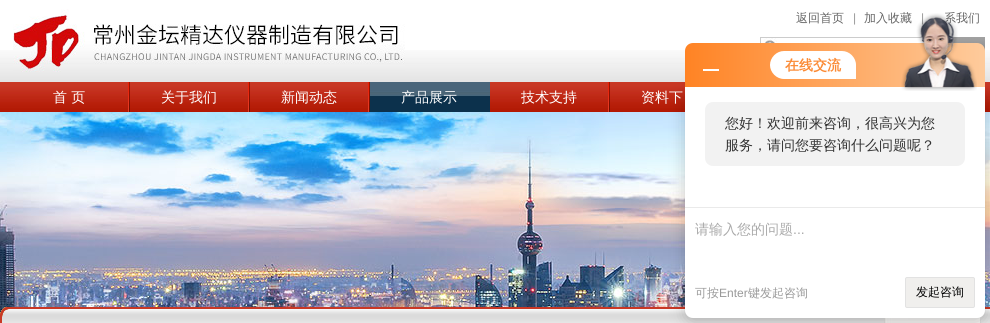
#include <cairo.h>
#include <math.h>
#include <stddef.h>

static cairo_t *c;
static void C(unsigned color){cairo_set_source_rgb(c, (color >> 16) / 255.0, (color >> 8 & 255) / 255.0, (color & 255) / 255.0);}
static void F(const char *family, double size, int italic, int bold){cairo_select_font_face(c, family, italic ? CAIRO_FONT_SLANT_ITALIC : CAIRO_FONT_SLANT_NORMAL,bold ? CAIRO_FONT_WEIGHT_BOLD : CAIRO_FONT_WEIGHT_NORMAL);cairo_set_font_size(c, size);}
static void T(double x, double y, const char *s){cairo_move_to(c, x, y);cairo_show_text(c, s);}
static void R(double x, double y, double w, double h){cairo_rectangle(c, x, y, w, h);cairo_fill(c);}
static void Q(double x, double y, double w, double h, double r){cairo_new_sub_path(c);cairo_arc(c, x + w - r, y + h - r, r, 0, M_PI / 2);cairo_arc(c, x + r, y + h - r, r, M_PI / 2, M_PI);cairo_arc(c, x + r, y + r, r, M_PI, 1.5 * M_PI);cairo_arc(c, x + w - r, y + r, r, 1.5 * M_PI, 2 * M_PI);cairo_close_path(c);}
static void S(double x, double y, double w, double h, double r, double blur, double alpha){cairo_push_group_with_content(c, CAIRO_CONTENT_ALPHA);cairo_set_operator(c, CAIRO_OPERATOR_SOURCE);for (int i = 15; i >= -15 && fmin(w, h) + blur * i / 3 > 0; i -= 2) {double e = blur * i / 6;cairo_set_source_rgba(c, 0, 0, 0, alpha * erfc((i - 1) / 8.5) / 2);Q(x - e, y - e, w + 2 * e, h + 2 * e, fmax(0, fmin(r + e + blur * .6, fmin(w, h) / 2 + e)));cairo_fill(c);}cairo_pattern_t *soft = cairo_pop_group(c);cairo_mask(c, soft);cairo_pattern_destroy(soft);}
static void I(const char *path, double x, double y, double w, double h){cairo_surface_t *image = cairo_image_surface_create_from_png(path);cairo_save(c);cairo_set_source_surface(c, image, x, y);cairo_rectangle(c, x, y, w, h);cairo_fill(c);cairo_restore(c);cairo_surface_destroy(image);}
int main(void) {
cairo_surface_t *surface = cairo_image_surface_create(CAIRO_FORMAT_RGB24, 990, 323);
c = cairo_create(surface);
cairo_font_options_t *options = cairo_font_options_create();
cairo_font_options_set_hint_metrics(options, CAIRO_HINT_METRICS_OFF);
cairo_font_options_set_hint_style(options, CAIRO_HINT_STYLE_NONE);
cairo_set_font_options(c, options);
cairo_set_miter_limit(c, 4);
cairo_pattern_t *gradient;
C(0xffffff);
cairo_paint(c);
I("1.png",0,50,990,32);
I("2.png",13,9,392,63);
F("WenQuanYi Zen Hei Medium",12,0,0);
C(0x666666);
T(796,22,"返回首页");
F("Liberation Sans",12,0,0);
C(0x999999);
T(853,22,"|");
F("WenQuanYi Zen Hei Medium",12,0,0);
C(0x666666);
T(864,22,"加入收藏");
F("Liberation Sans",12,0,0);
C(0x999999);
T(921,22,"|");
F("WenQuanYi Zen Hei Medium",12,0,0);
C(0x666666);
T(944,22,"系我们");
I("3.png",764,38,16,5);
cairo_rectangle(c,760.5,37.5,174,21);
C(0xcccccc);
cairo_set_line_width(c,1);
cairo_stroke(c);
I("4.png",947,37,38,14);
I("5.png",0,82,990,30);
I("6.png",128,82,2,30);
F("WenQuanYi Zen Hei Medium",14,0,0);
C(0xffffff);
T(53,102,"首 页");
I("6.png",248,82,2,30);
T(161,102,"关于我们");
I("6.png",368,82,2,30);
T(281,102,"新闻动态");
I("7.png",370,82,120,30);
T(401,102,"产品展示");
I("6.png",608,82,2,30);
T(521,102,"技术支持");
T(641,102,"资料下");
I("9.png",0,112,990,200);
I("10.png",0,307,990,16);
I("11.png",884,316,97,7);
C(0x000000);
S(685,91,300,231,8,8,.2);
gradient = cairo_pattern_create_linear(685,65,985,65);
cairo_pattern_add_color_stop_rgba(gradient,0,1,0.514,0.141,1);
cairo_pattern_add_color_stop_rgba(gradient,1,0.996,0.796,0.612,1);
cairo_set_source(c,gradient);
cairo_pattern_destroy(gradient);
cairo_new_path(c);
cairo_move_to(c,693,43);
cairo_line_to(c,977,43);
cairo_curve_to(c,981.5,43,985,46.5,985,51);
cairo_line_to(c,985,87);
cairo_line_to(c,685,87);
cairo_line_to(c,685,51);
cairo_curve_to(c,685,46.5,688.5,43,693,43);
cairo_close_path(c);
cairo_fill(c);
C(0xffffff);
R(703,69,16,2);
cairo_new_path(c);
cairo_move_to(c,784,51);
cairo_line_to(c,842,51);
cairo_curve_to(c,849.5,51,856,57.5,856,65);
cairo_line_to(c,856,79);
cairo_line_to(c,784,79);
cairo_curve_to(c,776.5,79,770,72.5,770,65);
cairo_curve_to(c,770,57.5,776.5,51,784,51);
cairo_close_path(c);
cairo_fill(c);
F("WenQuanYi Zen Hei",14,0,1);
C(0xfb8b36);
T(785,70,"在线交流");
C(0xffffff);
cairo_new_path(c);
cairo_move_to(c,685,87);
cairo_line_to(c,985,87);
cairo_line_to(c,985,310);
cairo_curve_to(c,985,314.5,981.5,318,977,318);
cairo_line_to(c,693,318);
cairo_curve_to(c,688.5,318,685,314.5,685,310);
cairo_close_path(c);
cairo_fill(c);
I("8.png",901,13,76,78);
C(0xf2f2f2);
Q(705,102,260,64,8);
cairo_fill(c);
F("WenQuanYi Zen Hei Medium",14,0,0);
C(0x333333);
T(725,128,"您好！欢迎前来咨询，很高兴为您");
T(725,150,"服务，请问您要咨询什么问题呢？");
C(0xeaeaea);
R(685,207,300,1);
C(0xaaaaaa);
T(695,234,"请输入您的问题");
F("Liberation Sans",14,0,0);
T(793,234,"...");
F("WenQuanYi Zen Hei Medium",12,0,0);
C(0x999999);
T(695,297,"可按");
F("Liberation Sans",12,0,0);
T(719,297,"Enter");
F("WenQuanYi Zen Hei Medium",12,0,0);
T(748,297,"键发起咨询");
C(0xf0efed);
Q(905.5,277.5,69,30,1.5);
cairo_fill_preserve(c);
C(0xe2e2e2);
cairo_stroke(c);
C(0x000000);
T(916,296,"发起咨询");
cairo_surface_write_to_png(surface, "o.png");
cairo_font_options_destroy(options);
cairo_destroy(c);
cairo_surface_destroy(surface);
return 0;
}
